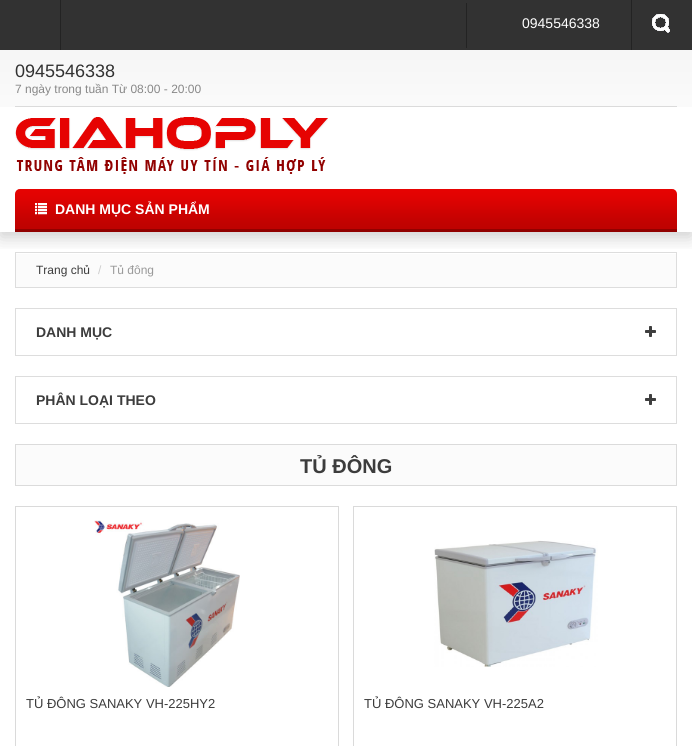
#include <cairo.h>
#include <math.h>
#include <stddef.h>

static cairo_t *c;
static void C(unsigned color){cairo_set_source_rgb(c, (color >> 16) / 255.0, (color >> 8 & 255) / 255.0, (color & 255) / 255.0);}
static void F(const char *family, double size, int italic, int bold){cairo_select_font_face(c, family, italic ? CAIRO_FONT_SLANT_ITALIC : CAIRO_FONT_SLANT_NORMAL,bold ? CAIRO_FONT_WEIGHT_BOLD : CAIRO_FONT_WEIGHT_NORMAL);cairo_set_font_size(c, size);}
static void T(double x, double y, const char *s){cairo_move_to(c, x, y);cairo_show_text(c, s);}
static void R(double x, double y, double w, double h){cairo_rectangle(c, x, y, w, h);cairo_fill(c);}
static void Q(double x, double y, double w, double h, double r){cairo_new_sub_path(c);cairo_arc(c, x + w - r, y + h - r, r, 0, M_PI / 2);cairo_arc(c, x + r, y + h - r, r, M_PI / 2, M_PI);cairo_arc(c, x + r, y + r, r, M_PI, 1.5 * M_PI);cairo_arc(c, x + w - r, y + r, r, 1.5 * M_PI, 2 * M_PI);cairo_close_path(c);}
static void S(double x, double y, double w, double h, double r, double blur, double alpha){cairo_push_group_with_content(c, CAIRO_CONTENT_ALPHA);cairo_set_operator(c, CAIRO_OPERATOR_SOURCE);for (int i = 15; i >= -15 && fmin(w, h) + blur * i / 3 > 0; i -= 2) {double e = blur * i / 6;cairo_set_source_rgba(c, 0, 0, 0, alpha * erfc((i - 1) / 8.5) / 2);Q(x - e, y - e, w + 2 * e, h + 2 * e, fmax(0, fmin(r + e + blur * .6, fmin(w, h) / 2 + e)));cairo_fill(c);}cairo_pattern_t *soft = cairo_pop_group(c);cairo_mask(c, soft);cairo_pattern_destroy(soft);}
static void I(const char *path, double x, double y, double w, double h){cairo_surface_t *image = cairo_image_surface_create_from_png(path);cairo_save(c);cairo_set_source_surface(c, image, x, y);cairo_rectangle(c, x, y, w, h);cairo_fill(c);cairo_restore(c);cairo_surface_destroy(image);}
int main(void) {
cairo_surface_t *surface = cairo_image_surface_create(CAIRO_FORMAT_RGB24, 692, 746);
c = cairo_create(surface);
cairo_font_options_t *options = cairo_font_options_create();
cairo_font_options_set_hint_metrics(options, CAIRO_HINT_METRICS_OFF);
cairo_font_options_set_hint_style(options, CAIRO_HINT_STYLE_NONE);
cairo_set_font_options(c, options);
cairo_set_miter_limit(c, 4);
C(0xffffff);
cairo_paint(c);
cairo_save(c);
cairo_rectangle(c,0,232,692,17);
cairo_clip(c);
C(0x000000);
S(0,7,692,230,0,9,.2);
cairo_restore(c);
C(0x323232);
R(0,0,692,50);
C(0x232323);
R(60,0,1,50);
R(631,0,1,50);
I("1.png",652,14,18,19);
I("2.png",0,50,692,57);
R(466,3,1,45);
F("Liberation Sans",14,0,0);
C(0xffffff);
T(522,28,"0945546338");
C(0xdbdbdb);
R(15,106,662,1);
F("Liberation Sans",18,0,0);
C(0x323232);
T(15,77,"0945546338");
F("Liberation Sans",12,0,0);
C(0x888888);
T(15,93,"7 ngày trong tuần Từ 08:00 - 20:00");
I("3.png",15,117,313,57);
I("4.png",15,189,662,40);
C(0x910100);
R(15,229,662,3);
I("5.png",35,203,12,12);
F("Liberation Sans",14,0,1);
C(0xffffff);
T(55,214,"DANH MỤC SẢN PHẨM");
C(0xfbfbfb);
R(16,254,660,33);
cairo_rectangle(c,15.5,252.5,661,35);
C(0xdddddd);
cairo_set_line_width(c,1);
cairo_stroke(c);
F("Liberation Sans",12,0,0);
C(0x3c3c3c);
T(36,274,"Trang chủ");
C(0xcccccc);
T(98,274,"/");
C(0x999999);
T(110,274,"Tủ đông");
cairo_rectangle(c,15.5,308.5,661,47);
C(0xdddddd);
cairo_stroke(c);
F("Liberation Sans",14,0,1);
C(0x3c3c3c);
T(36,337,"DANH MỤC");
I("6.png",645,326,11,11);
cairo_rectangle(c,15.5,376.5,661,47);
C(0xdddddd);
cairo_stroke(c);
C(0x3c3c3c);
T(36,405,"PHÂN LOẠI THEO");
I("6.png",645,394,11,11);
C(0xfbfbfb);
cairo_rectangle(c,15.5,444.5,661,41);
cairo_fill_preserve(c);
C(0xdbdbdb);
cairo_stroke(c);
F("Liberation Sans",20,0,1);
C(0x3c3c3c);
T(300,473,"TỦ ĐÔNG");
cairo_rectangle(c,15.5,506.5,323,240);
C(0xdadada);
cairo_stroke(c);
I("7.png",94,520,146,167);
F("Liberation Sans",13,0,0);
C(0x3c3c3c);
T(26,708,"TỦ ĐÔNG SANAKY VH-225HY2");
cairo_rectangle(c,353.5,506.5,323,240);
C(0xdadada);
cairo_stroke(c);
I("8.png",434,540,164,127);
C(0x3c3c3c);
T(364,708,"TỦ ĐÔNG SANAKY VH-225A2");
cairo_surface_write_to_png(surface, "o.png");
cairo_font_options_destroy(options);
cairo_destroy(c);
cairo_surface_destroy(surface);
return 0;
}
